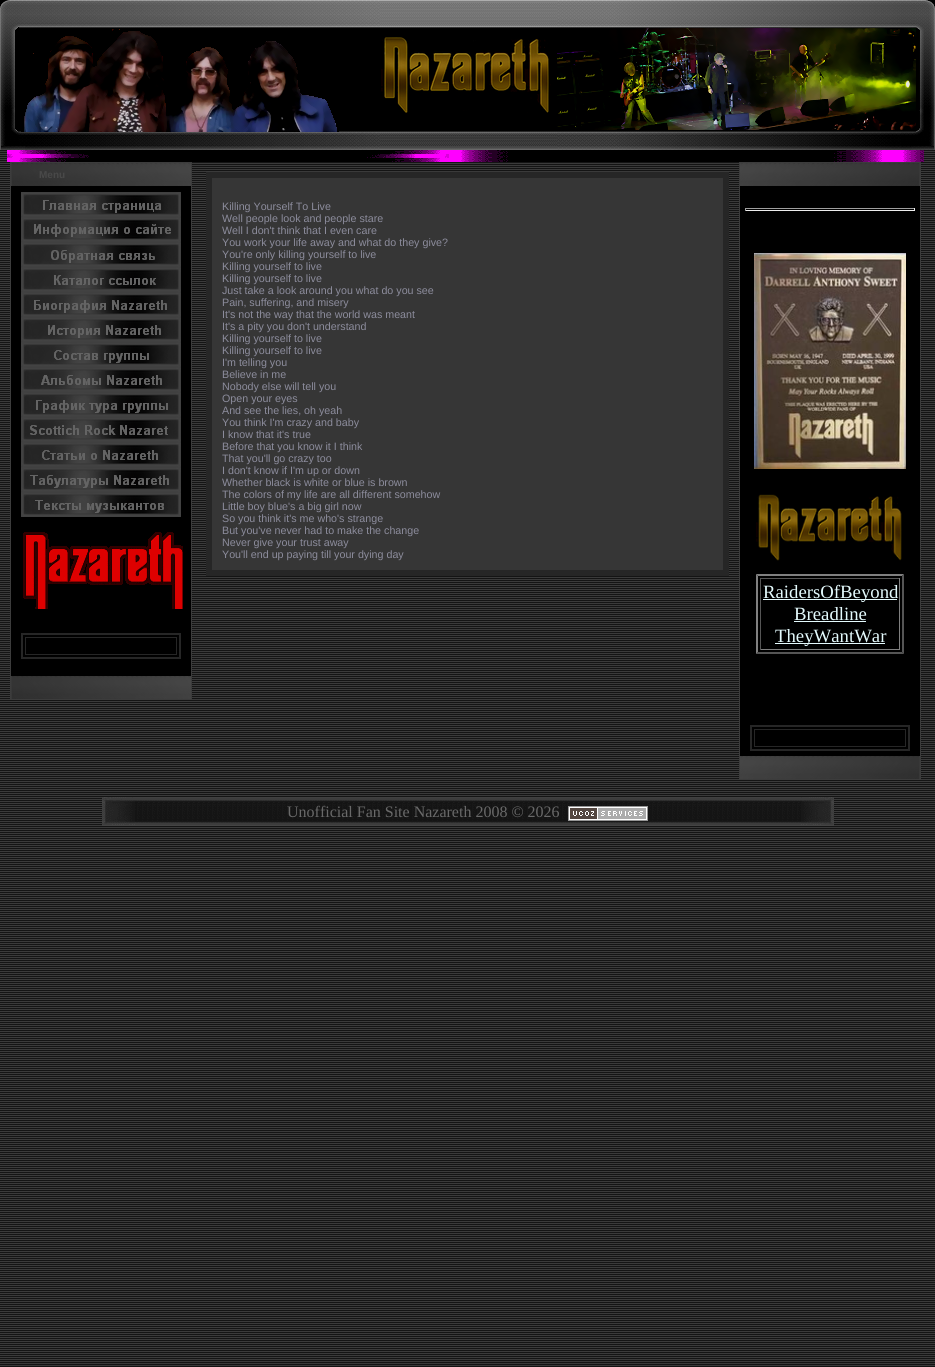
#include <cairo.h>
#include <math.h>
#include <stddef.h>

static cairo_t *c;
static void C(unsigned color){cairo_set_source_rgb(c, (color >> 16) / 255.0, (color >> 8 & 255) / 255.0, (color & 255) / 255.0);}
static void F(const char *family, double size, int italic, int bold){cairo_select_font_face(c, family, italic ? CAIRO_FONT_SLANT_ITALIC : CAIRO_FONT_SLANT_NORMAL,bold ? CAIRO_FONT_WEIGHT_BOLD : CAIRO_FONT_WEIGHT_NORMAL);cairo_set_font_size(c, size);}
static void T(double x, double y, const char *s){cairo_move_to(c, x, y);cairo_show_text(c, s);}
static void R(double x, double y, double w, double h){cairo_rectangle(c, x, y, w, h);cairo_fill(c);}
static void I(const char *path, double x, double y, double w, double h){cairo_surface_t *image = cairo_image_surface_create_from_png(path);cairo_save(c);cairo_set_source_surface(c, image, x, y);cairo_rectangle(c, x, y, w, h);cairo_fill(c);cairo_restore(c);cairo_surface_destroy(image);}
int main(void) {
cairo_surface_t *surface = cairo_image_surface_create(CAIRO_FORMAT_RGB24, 935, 1367);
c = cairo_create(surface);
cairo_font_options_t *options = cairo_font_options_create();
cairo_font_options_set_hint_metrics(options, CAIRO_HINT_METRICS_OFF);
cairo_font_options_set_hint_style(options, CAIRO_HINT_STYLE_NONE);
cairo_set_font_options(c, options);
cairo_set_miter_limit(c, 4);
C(0xffffff);
cairo_paint(c);
I("1.png",0,150,935,1217);
I("2.png",0,0,381,150);
I("3.png",381,0,176,150);
I("4.png",381,37,170,76);
I("5.png",557,0,378,150);
I("6.png",7,150,917,12);
I("7.png",7,154,442,4);
cairo_rectangle(c,10.5,162.5,181,537);
C(0x3c3c3c);
cairo_set_line_width(c,1);
cairo_stroke(c);
I("8.png",11,163,180,23);
F("Liberation Sans",10,0,1);
C(0x494949);
T(39,178,"Menu");
C(0x000000);
R(11,186,180,490);
I("9.png",21,192,160,25);
I("10.png",21,217,160,25);
I("11.png",21,242,160,25);
I("12.png",21,267,160,25);
I("13.png",21,292,160,25);
I("14.png",21,317,160,25);
I("15.png",21,342,160,25);
I("16.png",21,367,160,25);
I("17.png",21,392,160,25);
I("18.png",21,417,160,25);
I("19.png",21,442,160,25);
I("20.png",21,467,160,25);
I("21.png",21,492,160,25);
I("22.png",23,532,160,77);
cairo_rectangle(c,22,634,158,24);
C(0x262626);
cairo_set_line_width(c,2);
cairo_stroke(c);
cairo_rectangle(c,25.5,637.5,151,17);
cairo_set_line_width(c,1);
cairo_stroke(c);
I("8.png",11,676,180,23);
cairo_rectangle(c,208.5,174.5,518,399);
cairo_set_line_width(c,5);
cairo_stroke(c);
C(0x363636);
cairo_rectangle(c,211.5,177.5,512,393);
cairo_fill_preserve(c);
C(0x262626);
cairo_set_line_width(c,1);
cairo_stroke(c);
F("Liberation Sans",10.7,0,0);
C(0x8c8c9c);
T(222,210,"Killing Yourself To Live");
T(222,222,"Well people look and people stare");
T(222,234,"Well I don't think that I even care");
T(222,246,"You work your life away and what do they give?");
T(222,258,"You're only killing yourself to live");
T(222,270,"Killing yourself to live");
T(222,282,"Killing yourself to live");
T(222,294,"Just take a look around you what do you see");
T(222,306,"Pain, suffering, and misery");
T(222,318,"It's not the way that the world was meant");
T(222,330,"It's a pity you don't understand");
T(222,342,"Killing yourself to live");
T(222,354,"Killing yourself to live");
T(222,366,"I'm telling you");
T(222,378,"Believe in me");
T(222,390,"Nobody else will tell you");
T(222,402,"Open your eyes");
T(222,414,"And see the lies, oh yeah");
T(222,426,"You think I'm crazy and baby");
T(222,438,"I know that it's true");
T(222,450,"Before that you know it I think");
T(222,462,"That you'll go crazy too");
T(222,474,"I don't know if I'm up or down");
T(222,486,"Whether black is white or blue is brown");
T(222,498,"The colors of my life are all different somehow");
T(222,510,"Little boy blue's a big girl now");
T(222,522,"So you think it's me who's strange");
T(222,534,"But you've never had to make the change");
T(222,546,"Never give your trust away");
T(222,558,"You'll end up paying till your dying day");
cairo_rectangle(c,739.5,162.5,181,617);
C(0x3c3c3c);
cairo_stroke(c);
I("23.png",740,163,180,23);
C(0x000000);
R(740,186,180,570);
C(0x9f9f9f);
R(745,208,170,1);
C(0xeeeeee);
R(914,208,1,3);
R(745,210,170,1);
C(0x9f9f9f);
R(745,208,1,3);
I("24.png",754,253,152,216);
I("25.png",756,494,146,67);
C(0x808080);
cairo_new_path(c);
cairo_move_to(c,756,574);
cairo_line_to(c,904,574);
cairo_line_to(c,902,576);
cairo_line_to(c,758,576);
cairo_close_path(c);
cairo_fill(c);
C(0x555555);
cairo_new_path(c);
cairo_move_to(c,904,574);
cairo_line_to(c,904,654);
cairo_line_to(c,902,652);
cairo_line_to(c,902,576);
cairo_close_path(c);
cairo_fill(c);
cairo_new_path(c);
cairo_move_to(c,904,654);
cairo_line_to(c,756,654);
cairo_line_to(c,758,652);
cairo_line_to(c,902,652);
cairo_close_path(c);
cairo_fill(c);
C(0x808080);
cairo_new_path(c);
cairo_move_to(c,756,654);
cairo_line_to(c,756,574);
cairo_line_to(c,758,576);
cairo_line_to(c,758,652);
cairo_close_path(c);
cairo_fill(c);
C(0x555555);
R(760,578,140,1);
C(0x808080);
R(899,578,1,72);
R(760,649,140,1);
C(0x555555);
R(760,578,1,72);
C(0xe4fafd);
R(763,599,134,1);
F("Liberation Serif",18.75,0,0);
T(763,598,"RaidersOfBeyond");
T(794,620,"Breadline");
R(794,621,72,1);
R(775,643,110,1);
T(775,642,"TheyWantWar");
cairo_rectangle(c,751,726,158,24);
C(0x262626);
cairo_set_line_width(c,2);
cairo_stroke(c);
cairo_rectangle(c,754.5,729.5,151,17);
cairo_set_line_width(c,1);
cairo_stroke(c);
I("23.png",740,756,180,23);
I("26.png",102,797,732,29);
I("27.png",102,797,33,28);
F("Liberation Serif",16,0,0);
C(0x696969);
T(287,817,"Unofficial Fan Site Nazareth 2008 © 2026");
I("28.png",568,806,80,15);
I("29.png",801,797,33,28);
cairo_surface_write_to_png(surface, "o.png");
cairo_font_options_destroy(options);
cairo_destroy(c);
cairo_surface_destroy(surface);
return 0;
}
